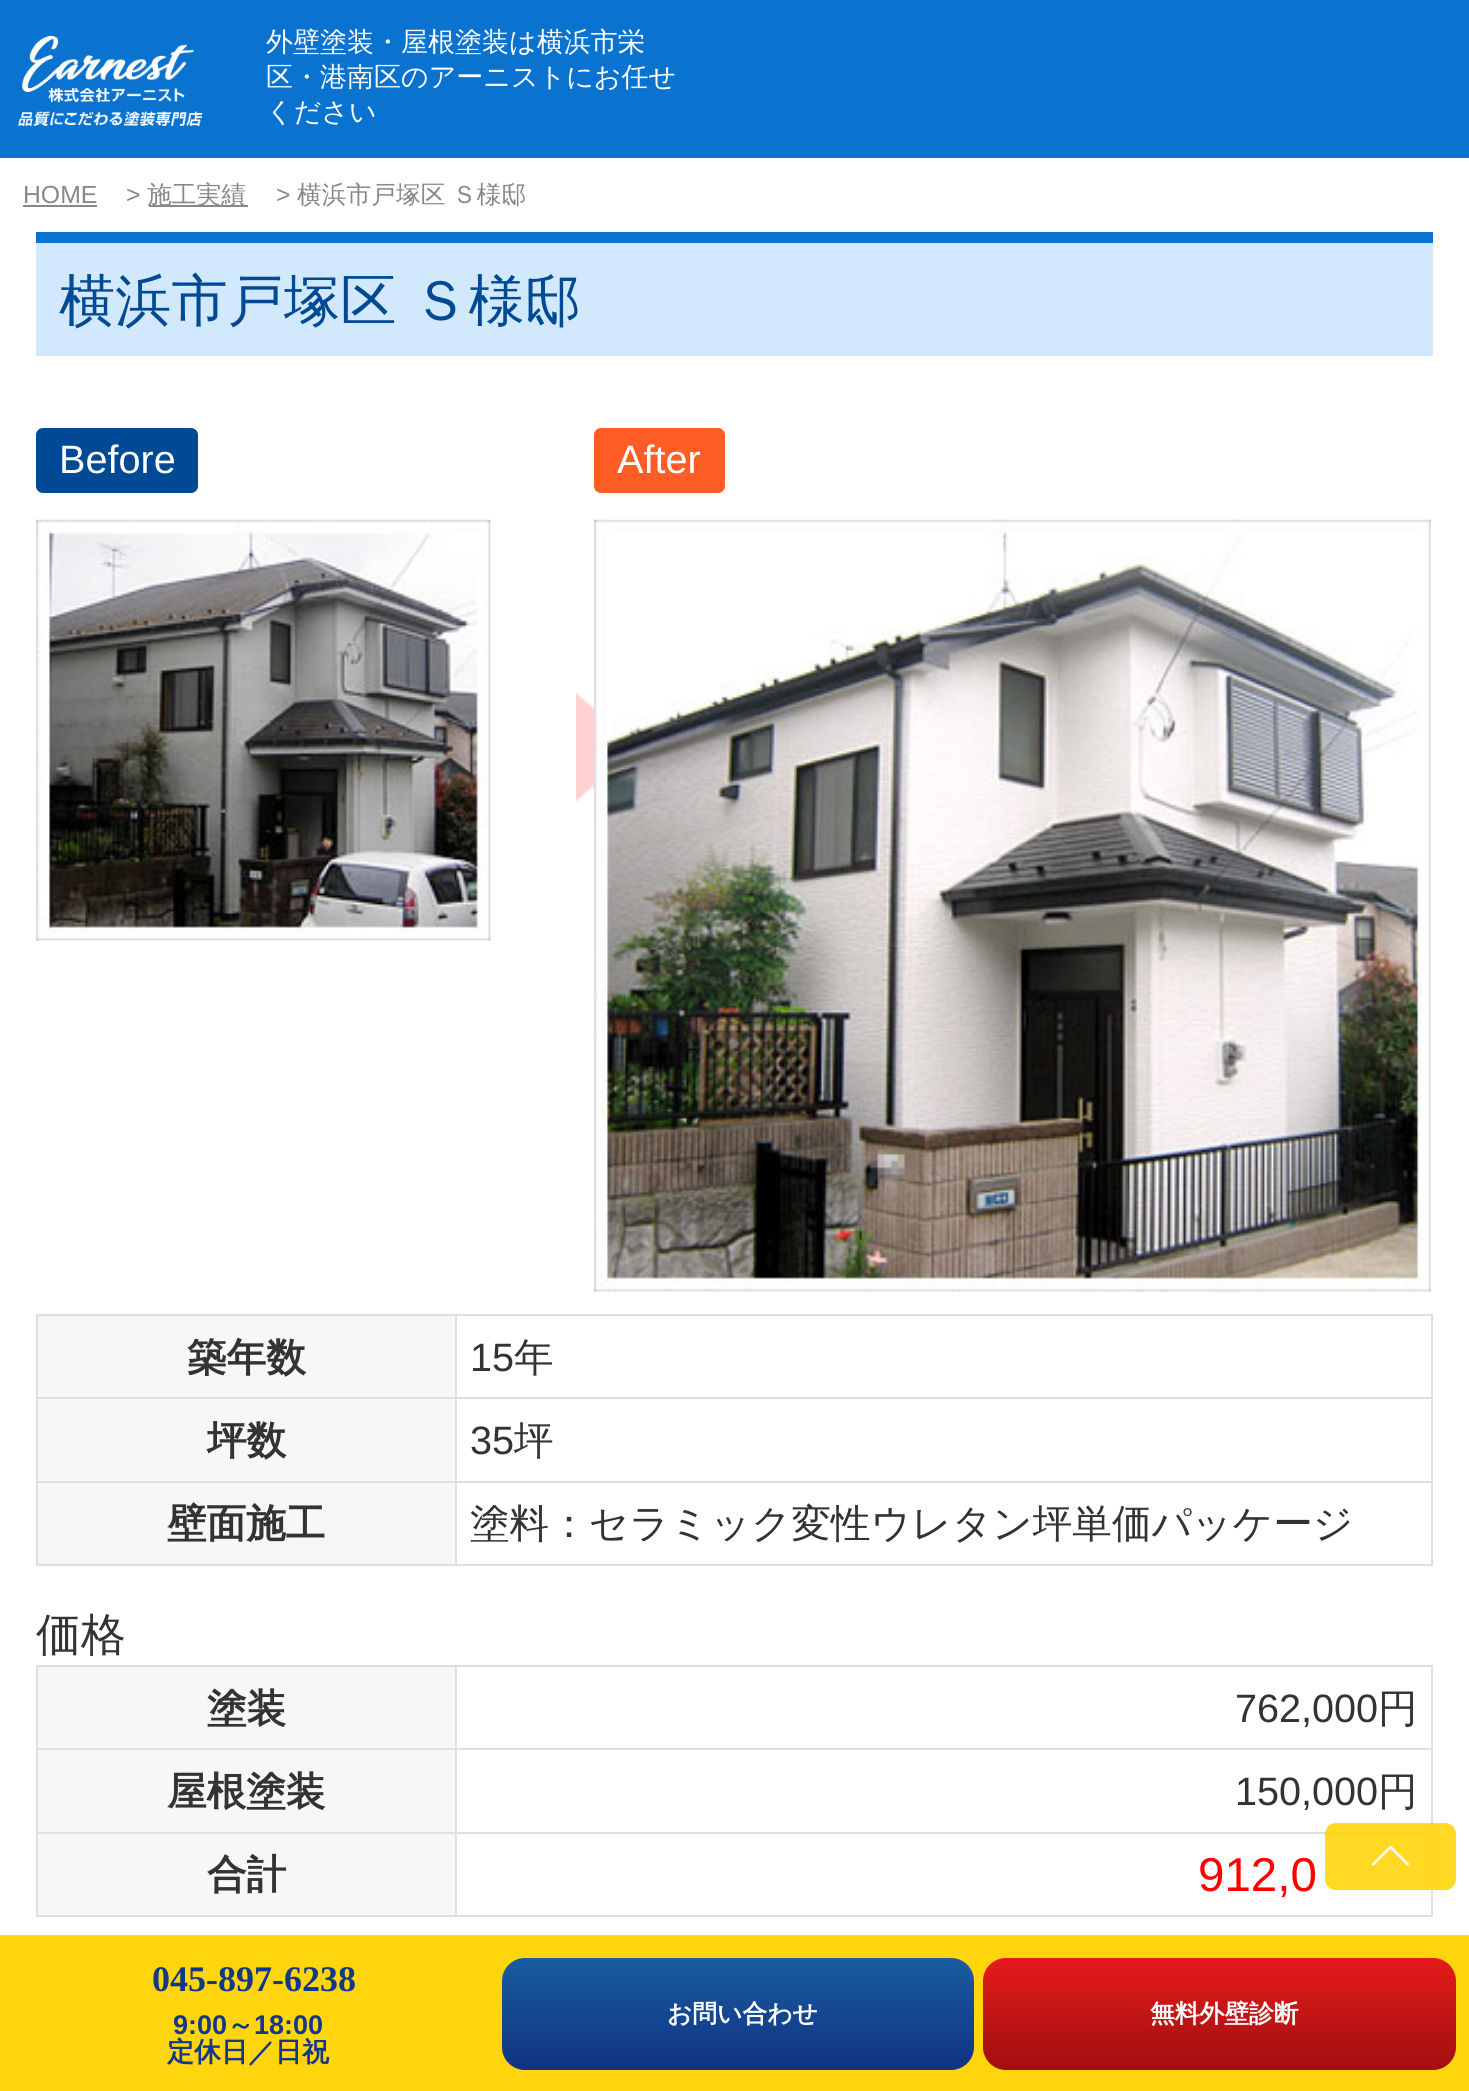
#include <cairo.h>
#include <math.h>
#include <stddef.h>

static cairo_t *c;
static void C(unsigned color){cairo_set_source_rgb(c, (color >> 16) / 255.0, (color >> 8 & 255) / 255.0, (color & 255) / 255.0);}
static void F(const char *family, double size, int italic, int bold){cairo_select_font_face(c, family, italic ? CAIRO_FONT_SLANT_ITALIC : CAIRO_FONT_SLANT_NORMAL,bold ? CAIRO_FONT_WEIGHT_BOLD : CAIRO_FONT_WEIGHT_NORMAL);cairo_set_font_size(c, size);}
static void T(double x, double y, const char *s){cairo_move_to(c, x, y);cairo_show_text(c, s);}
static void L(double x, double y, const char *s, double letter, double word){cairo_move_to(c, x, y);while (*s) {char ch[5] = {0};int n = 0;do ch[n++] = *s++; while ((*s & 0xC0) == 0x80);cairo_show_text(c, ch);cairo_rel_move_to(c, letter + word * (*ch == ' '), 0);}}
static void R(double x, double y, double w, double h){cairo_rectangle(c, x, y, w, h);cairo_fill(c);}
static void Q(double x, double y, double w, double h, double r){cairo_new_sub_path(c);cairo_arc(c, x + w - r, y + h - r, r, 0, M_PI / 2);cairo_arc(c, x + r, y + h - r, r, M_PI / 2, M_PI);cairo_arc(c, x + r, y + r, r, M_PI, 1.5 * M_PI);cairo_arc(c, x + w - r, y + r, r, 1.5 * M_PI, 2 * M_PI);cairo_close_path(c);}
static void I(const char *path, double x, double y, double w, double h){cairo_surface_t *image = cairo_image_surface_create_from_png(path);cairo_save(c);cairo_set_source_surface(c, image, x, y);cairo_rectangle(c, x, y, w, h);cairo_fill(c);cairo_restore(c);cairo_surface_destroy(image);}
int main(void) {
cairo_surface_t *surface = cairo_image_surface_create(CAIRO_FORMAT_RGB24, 1469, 2091);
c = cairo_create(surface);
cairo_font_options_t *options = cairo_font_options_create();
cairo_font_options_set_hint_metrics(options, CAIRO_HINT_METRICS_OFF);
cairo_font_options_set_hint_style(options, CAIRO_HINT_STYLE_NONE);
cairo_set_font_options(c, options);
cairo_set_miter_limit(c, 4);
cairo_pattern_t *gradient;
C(0xffffff);
cairo_paint(c);
C(0x0a72cf);
R(0,0,1469,158);
I("1.png",18,35,185,91);
F("WenQuanYi Zen Hei Medium",27,0,0);
C(0xffffff);
T(266,51,"外壁塗装・屋根塗装は横浜市栄");
T(266,86,"区・港南区のアーニストにお任せ");
T(266,121,"ください");
F("Liberation Sans",24.75,0,0);
C(0x888888);
T(23,203,"HOME");
R(23,205,74,2);
T(126,203,">");
R(149,205,99,2);
F("WenQuanYi Zen Hei Medium",24.75,0,0);
T(147,203,"施工実績");
F("Liberation Sans",24.75,0,0);
T(276,203,">");
F("WenQuanYi Zen Hei Medium",24.75,0,0);
L(297,203,"横浜市戸塚区 Ｓ様邸",0,-1);
C(0xd2e9fd);
R(36,243,1397,113);
C(0x0a72cf);
R(36,232,1397,11);
F("WenQuanYi Zen Hei Medium",56.25,0,0);
C(0x004a95);
L(59,320,"横浜市戸塚区 Ｓ様邸",0,-1);
I("2.png",576,693,18,108);
Q(36,428,162,65,7);
cairo_fill(c);
F("Liberation Sans",39.6,0,0);
C(0xffffff);
T(59,473,"Before");
I("3.png",36,519,455,422);
C(0xff5c26);
Q(594,428,131,65,7);
cairo_fill(c);
C(0xffffff);
T(617,473,"After");
I("4.png",594,519,837,773);
C(0xdfdfdf);
R(36,1314,1397,2);
R(36,1314,2,252);
C(0xf7f7f7);
R(38,1316,417,165);
C(0xdfdfdf);
R(1431,1314,2,252);
R(455,1564,978,2);
R(455,1481,2,85);
R(455,1481,978,2);
R(455,1397,2,86);
R(455,1397,978,2);
R(455,1314,2,86);
R(36,1397,421,2);
F("WenQuanYi Zen Hei",39.6,0,1);
C(0x333333);
T(187,1371,"築年数");
F("Liberation Sans",39.6,0,0);
T(470,1371,"15");
F("WenQuanYi Zen Hei Medium",39.6,0,0);
T(514,1371,"年");
C(0xdfdfdf);
R(36,1481,421,2);
F("WenQuanYi Zen Hei",39.6,0,1);
C(0x333333);
T(207,1454,"坪数");
F("Liberation Sans",39.6,0,0);
T(470,1454,"35");
F("WenQuanYi Zen Hei Medium",39.6,0,0);
T(514,1454,"坪");
C(0xf7f7f7);
R(38,1483,417,81);
C(0xdfdfdf);
R(36,1564,421,2);
F("WenQuanYi Zen Hei",39.6,0,1);
C(0x333333);
T(167,1537,"壁面施工");
F("WenQuanYi Zen Hei Medium",39.6,0,0);
T(470,1537,"塗料：セラミック変性ウレタン坪単価パッケージ");
F("WenQuanYi Zen Hei Medium",45,0,0);
T(36,1650,"価格");
C(0xdfdfdf);
R(36,1665,1397,2);
R(36,1665,2,252);
C(0xf7f7f7);
R(38,1667,417,165);
C(0xdfdfdf);
R(1431,1665,2,252);
R(455,1915,978,2);
R(455,1832,2,85);
R(455,1832,978,2);
R(455,1748,2,86);
R(455,1748,978,2);
R(455,1665,2,86);
R(36,1748,421,2);
F("WenQuanYi Zen Hei",39.6,0,1);
C(0x333333);
T(207,1722,"塗装");
F("Liberation Sans",39.6,0,0);
T(1235,1722,"762,000");
F("WenQuanYi Zen Hei Medium",39.6,0,0);
T(1378,1722,"円");
C(0xdfdfdf);
R(36,1832,421,2);
F("WenQuanYi Zen Hei",39.6,0,1);
C(0x333333);
T(167,1805,"屋根塗装");
F("Liberation Sans",39.6,0,0);
T(1235,1805,"150,000");
F("WenQuanYi Zen Hei Medium",39.6,0,0);
T(1378,1805,"円");
C(0xf7f7f7);
R(38,1834,417,81);
C(0xdfdfdf);
R(36,1915,421,2);
F("WenQuanYi Zen Hei",39.6,0,1);
C(0x333333);
T(207,1888,"合計");
F("Liberation Sans",47.5,0,0);
C(0xff0000);
T(1198,1891,"912,0");
cairo_set_source_rgba(c,1,0.835,0.051,0.9);
Q(1325,1823,131,67,11);
cairo_fill(c);
cairo_new_path(c);
cairo_move_to(c,1372.5,1865);
cairo_line_to(c,1390.5,1847);
cairo_line_to(c,1408.5,1865);
cairo_set_source_rgba(c,1,1,1,0.9);
cairo_set_line_width(c,2.7);
cairo_stroke(c);
C(0xffd50d);
R(0,1935,1469,156);
F("Liberation Serif",36,0,1);
C(0x123887);
T(152,1991,"045-897-6238");
F("Liberation Sans",27,0,1);
T(173,2034,"9:00");
F("WenQuanYi Zen Hei",27,0,1);
T(227,2034,"～");
F("Liberation Sans",27,0,1);
T(254,2034,"18:00");
F("WenQuanYi Zen Hei",27,0,1);
T(167,2061,"定休日／日祝");
gradient = cairo_pattern_create_linear(738,1958,738,2070);
cairo_pattern_add_color_stop_rgba(gradient,0,0.098,0.361,0.624,1);
cairo_pattern_add_color_stop_rgba(gradient,1,0.067,0.2,0.518,1);
cairo_set_source(c,gradient);
cairo_pattern_destroy(gradient);
Q(502,1958,472,112,23);
cairo_fill(c);
F("WenQuanYi Zen Hei",24.75,0,1);
C(0xffffff);
T(667,2022,"お問い合わせ");
gradient = cairo_pattern_create_linear(1220,1958,1220,2070);
cairo_pattern_add_color_stop_rgba(gradient,0,0.898,0.106,0.106,1);
cairo_pattern_add_color_stop_rgba(gradient,1,0.631,0.059,0.059,1);
cairo_set_source(c,gradient);
cairo_pattern_destroy(gradient);
Q(983,1958,473,112,23);
cairo_fill(c);
C(0xffffff);
T(1150,2022,"無料外壁診断");
cairo_surface_write_to_png(surface, "o.png");
cairo_font_options_destroy(options);
cairo_destroy(c);
cairo_surface_destroy(surface);
return 0;
}
